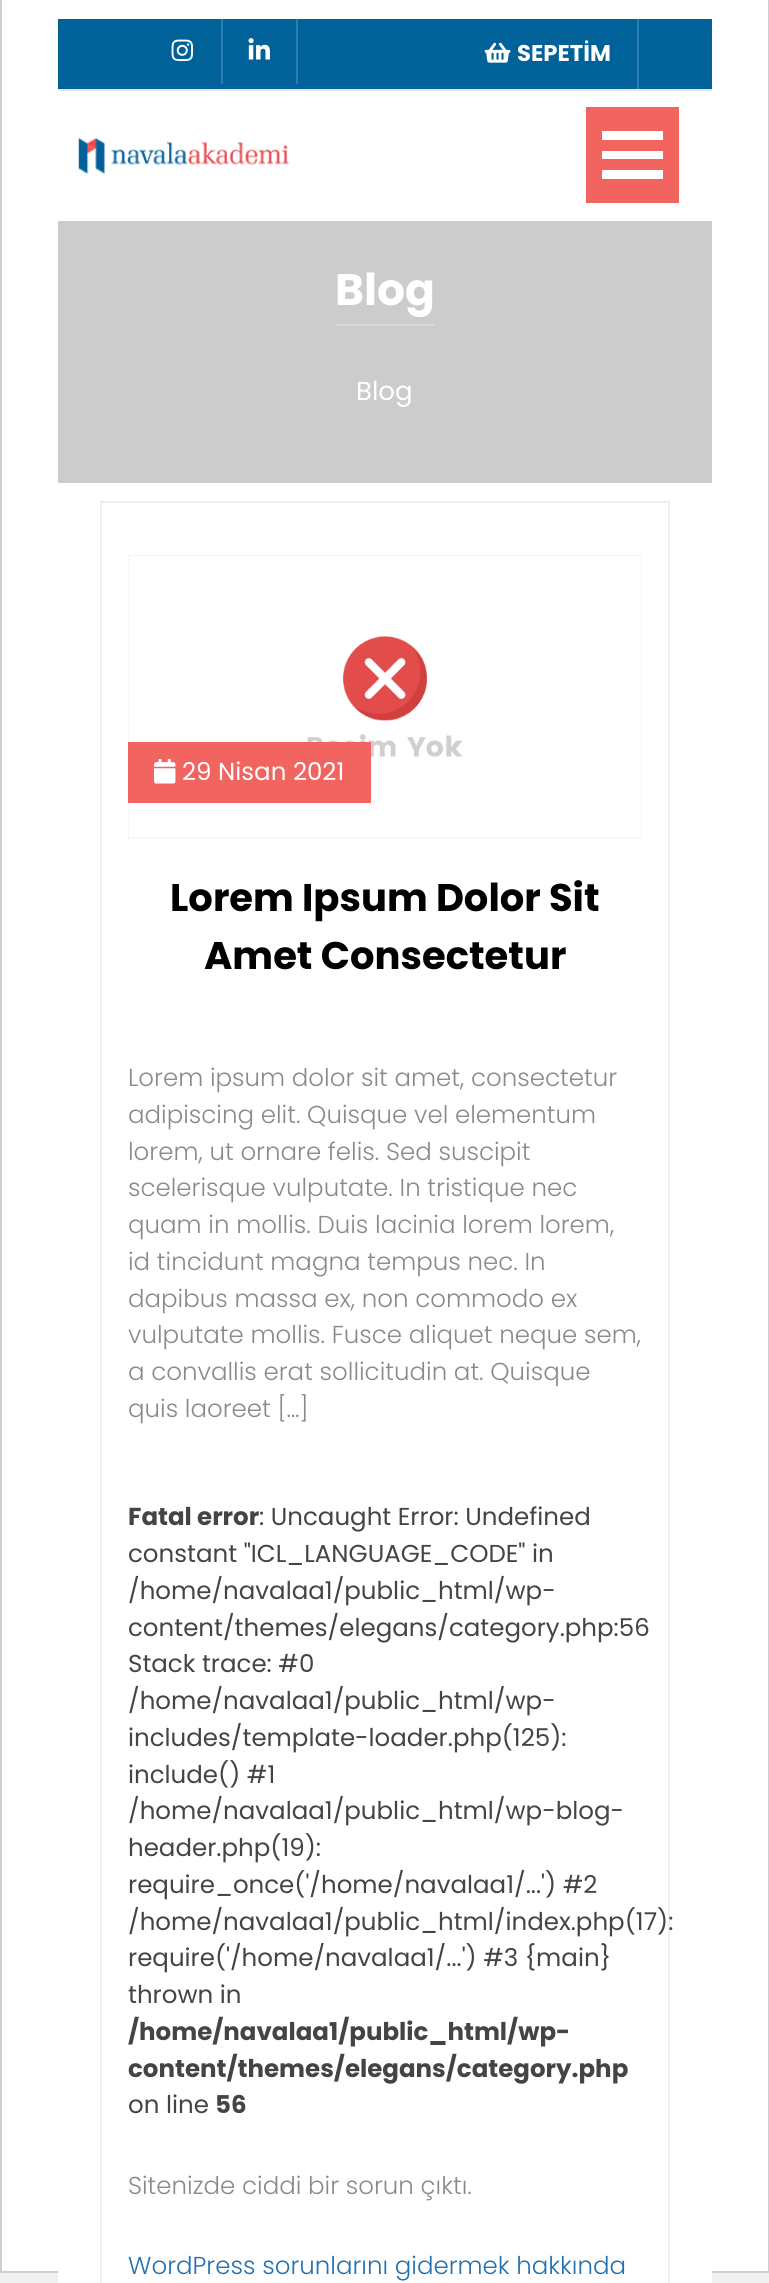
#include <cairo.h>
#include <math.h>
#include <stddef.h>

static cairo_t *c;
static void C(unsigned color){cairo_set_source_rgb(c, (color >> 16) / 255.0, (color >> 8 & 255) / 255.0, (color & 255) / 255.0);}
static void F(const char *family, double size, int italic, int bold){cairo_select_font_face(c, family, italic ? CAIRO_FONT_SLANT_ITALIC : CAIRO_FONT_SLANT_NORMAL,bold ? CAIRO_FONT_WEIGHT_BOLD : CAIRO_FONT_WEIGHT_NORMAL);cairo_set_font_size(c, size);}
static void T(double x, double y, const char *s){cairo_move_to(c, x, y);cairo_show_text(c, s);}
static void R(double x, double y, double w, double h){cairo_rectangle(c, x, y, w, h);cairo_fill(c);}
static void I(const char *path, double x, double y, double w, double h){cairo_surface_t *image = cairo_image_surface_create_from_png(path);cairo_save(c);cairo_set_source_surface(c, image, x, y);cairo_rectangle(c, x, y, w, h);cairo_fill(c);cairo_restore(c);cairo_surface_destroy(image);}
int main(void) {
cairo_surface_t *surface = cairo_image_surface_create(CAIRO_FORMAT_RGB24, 769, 2283);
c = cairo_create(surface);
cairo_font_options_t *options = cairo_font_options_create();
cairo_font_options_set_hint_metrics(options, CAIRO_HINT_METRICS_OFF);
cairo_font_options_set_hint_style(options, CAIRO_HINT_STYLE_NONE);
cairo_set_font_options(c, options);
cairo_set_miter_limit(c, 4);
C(0xf1f1f1);
cairo_paint(c);
C(0xffffff);
cairo_rectangle(c,1,-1,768,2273);
cairo_fill_preserve(c);
C(0xccd0d4);
cairo_stroke(c);
C(0x016299);
R(58,19,654,70);
C(0xe6e6e6);
R(58,89,654,2);
C(0x2b7ead);
R(221,19,2,65);
I("1.png",171,39,22,22);
R(296,19,2,65);
I("2.png",248,38,22,22);
R(637,19,2,70);
I("3.png",484,42,27,21);
F("Poppins",22.75,0,1);
C(0xffffff);
T(517,61,"SEPETİM");
I("4.png",78,138,211,36);
C(0xf26460);
R(586,107,93,96);
C(0xffffff);
R(602,131,61,9);
R(602,151,61,8);
R(602,170,61,9);
C(0xcccccc);
R(58,221,654,262);
C(0xdadada);
R(336,324,98,2);
F("Poppins",44,0,1);
C(0xffffff);
T(335,305,"Blog");
F("Poppins",26,0,0);
T(356,400,"Blog");
R(58,2271,654,12);
cairo_rectangle(c,101,502,568,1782);
C(0xefefef);
cairo_stroke(c);
I("5.png",128,555,514,284);
C(0xf26460);
R(128,742,243,61);
I("6.png",154,759,22,25);
F("Poppins",24.5,0,0);
C(0xffffff);
T(182,780,"29 Nisan 2021");
F("Poppins",38.5,0,1);
C(0x000000);
T(170,911,"Lorem Ipsum Dolor Sit");
T(204,969,"Amet Consectetur");
F("Poppins Light",24.5,0,0);
C(0x8a8a8a);
T(128,1086,"Lorem ipsum dolor sit amet, consectetur");
T(128,1123,"adipiscing elit. Quisque vel elementum");
T(128,1160,"lorem, ut ornare felis. Sed suscipit");
T(128,1196,"scelerisque vulputate. In tristique nec");
T(128,1233,"quam in mollis. Duis lacinia lorem lorem,");
T(128,1270,"id tincidunt magna tempus nec. In");
T(128,1307,"dapibus massa ex, non commodo ex");
T(128,1343,"vulputate mollis. Fusce aliquet neque sem,");
T(128,1380,"a convallis erat sollicitudin at. Quisque");
T(128,1417,"quis laoreet […]");
F("Poppins",24.5,0,1);
C(0x444444);
T(128,1525,"Fatal error");
F("Poppins",24.5,0,0);
T(259,1525,": Uncaught Error: Undefined");
T(128,1562,"constant \"ICL_LANGUAGE_CODE\" in");
T(128,1599,"/home/navalaa1/public_html/wp-");
T(128,1636,"content/themes/elegans/category.php:56");
T(128,1672,"Stack trace: #0");
T(128,1709,"/home/navalaa1/public_html/wp-");
T(128,1746,"includes/template-loader.php(125):");
T(128,1783,"include() #1");
T(128,1819,"/home/navalaa1/public_html/wp-blog-");
T(128,1856,"header.php(19):");
T(128,1893,"require_once('/home/navalaa1/...') #2");
T(128,1930,"/home/navalaa1/public_html/index.php(17):");
T(128,1966,"require('/home/navalaa1/...') #3 {main}");
T(128,2003,"thrown in");
F("Poppins",24.5,0,1);
T(128,2040,"/home/navalaa1/public_html/wp-");
T(128,2077,"content/themes/elegans/category.php");
F("Poppins",24.5,0,0);
T(128,2113,"on line");
F("Poppins",24.5,0,1);
T(215,2113,"56");
F("Poppins Light",24.5,0,0);
C(0x8a8a8a);
T(128,2194,"Sitenizde ciddi bir sorun çıktı.");
C(0x2271b1);
T(128,2274,"WordPress sorunlarını gidermek hakkında");
cairo_surface_write_to_png(surface, "o.png");
cairo_font_options_destroy(options);
cairo_destroy(c);
cairo_surface_destroy(surface);
return 0;
}
